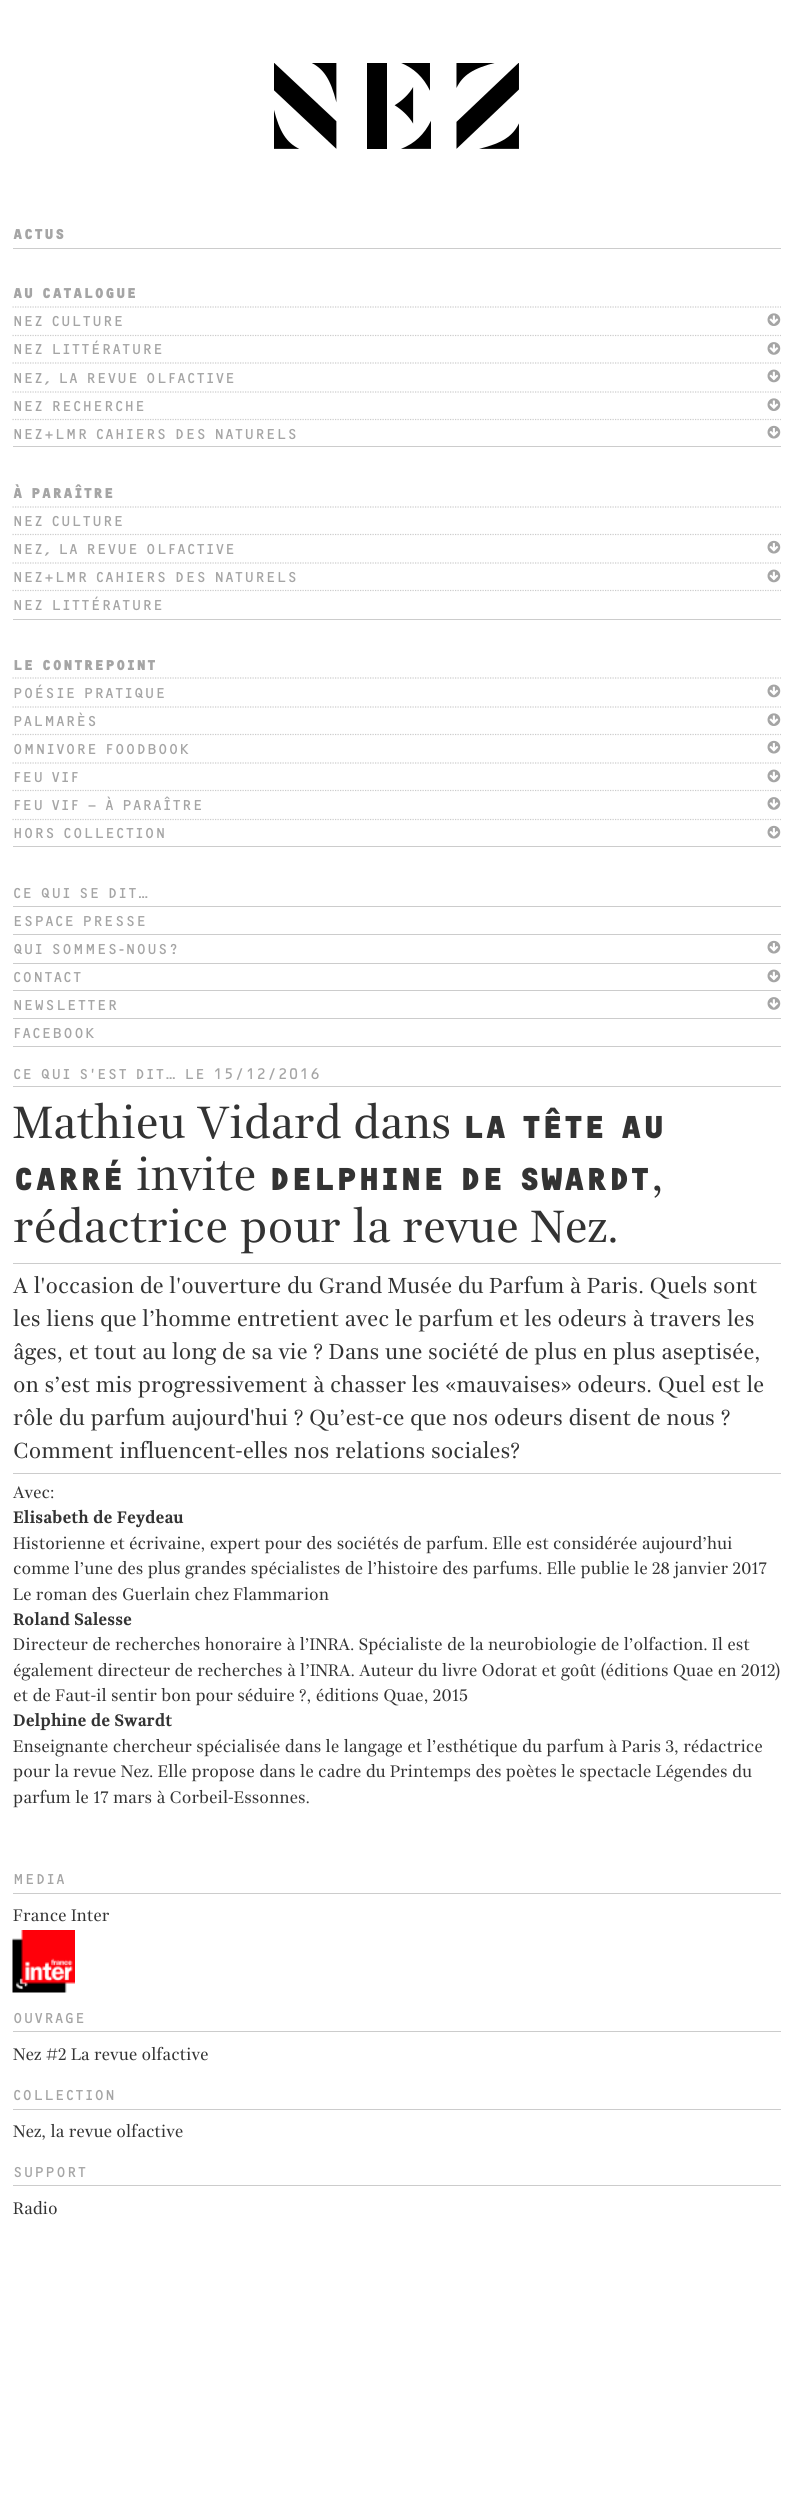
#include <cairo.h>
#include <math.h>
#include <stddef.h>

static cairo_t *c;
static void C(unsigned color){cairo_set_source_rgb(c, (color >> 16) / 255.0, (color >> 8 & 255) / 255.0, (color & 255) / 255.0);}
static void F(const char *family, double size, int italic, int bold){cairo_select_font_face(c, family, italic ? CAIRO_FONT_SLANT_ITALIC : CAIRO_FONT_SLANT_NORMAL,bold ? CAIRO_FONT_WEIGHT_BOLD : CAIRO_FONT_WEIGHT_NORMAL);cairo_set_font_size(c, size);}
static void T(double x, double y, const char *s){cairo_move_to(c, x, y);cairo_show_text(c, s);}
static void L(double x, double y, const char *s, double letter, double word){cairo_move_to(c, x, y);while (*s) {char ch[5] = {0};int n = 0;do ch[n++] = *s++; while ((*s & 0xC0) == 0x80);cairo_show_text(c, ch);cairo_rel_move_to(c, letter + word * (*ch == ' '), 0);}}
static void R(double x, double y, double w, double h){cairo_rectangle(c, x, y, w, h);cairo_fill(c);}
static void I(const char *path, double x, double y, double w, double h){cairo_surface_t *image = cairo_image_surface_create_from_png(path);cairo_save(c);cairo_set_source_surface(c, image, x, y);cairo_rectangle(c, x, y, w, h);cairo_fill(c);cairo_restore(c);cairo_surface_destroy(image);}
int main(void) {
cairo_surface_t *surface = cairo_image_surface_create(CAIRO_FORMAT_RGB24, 793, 2520);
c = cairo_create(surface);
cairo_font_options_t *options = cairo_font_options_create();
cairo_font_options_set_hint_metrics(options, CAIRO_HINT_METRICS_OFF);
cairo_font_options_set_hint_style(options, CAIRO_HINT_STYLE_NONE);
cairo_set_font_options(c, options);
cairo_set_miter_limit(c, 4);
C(0xffffff);
cairo_paint(c);
I("1.png",274,63,245,86);
C(0xcccccc);
R(13,248,768,1);
F("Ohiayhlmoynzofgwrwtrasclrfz",14.9,0,1);
C(0xa5a5a5);
L(13,239,"ACTUS",1.25,0);
C(0xcccccc);
R(13,446,768,1);
C(0xa5a5a5);
L(13,298,"AU CATALOGUE",1.25,0);
cairo_new_path(c);
cairo_move_to(c,12.5,307);
cairo_line_to(c,781,307);
C(0xcccccc);
cairo_set_line_width(c,1.2);
cairo_set_dash(c,(double[]){1.25,1.25},2,0);
cairo_stroke(c);
F("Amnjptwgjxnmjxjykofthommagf",14.9,0,0);
C(0xa5a5a5);
L(13,326,"NEZ CULTURE",1.25,0);
I("2.png",767,313,14,13);
cairo_new_path(c);
cairo_move_to(c,12.5,335.5);
cairo_line_to(c,781,335.5);
C(0xcccccc);
cairo_stroke(c);
C(0xa5a5a5);
L(13,354,"NEZ LITTÉRATURE",1.25,0);
I("3.png",767,342,14,13);
cairo_new_path(c);
cairo_move_to(c,12.5,363);
cairo_line_to(c,781,363);
C(0xcccccc);
cairo_stroke(c);
C(0xa5a5a5);
L(13,383,"NEZ, LA REVUE OLFACTIVE",1.25,0);
I("4.png",767,369,14,14);
cairo_new_path(c);
cairo_move_to(c,12.5,392);
cairo_line_to(c,781,392);
C(0xcccccc);
cairo_stroke(c);
C(0xa5a5a5);
L(13,411,"NEZ RECHERCHE",1.25,0);
I("2.png",767,398,14,13);
cairo_new_path(c);
cairo_move_to(c,12.5,419.5);
cairo_line_to(c,781,419.5);
C(0xcccccc);
cairo_stroke(c);
C(0xa5a5a5);
L(13,439,"NEZ+LMR CAHIERS DES NATURELS",1.25,0);
I("5.png",767,425,14,14);
C(0xcccccc);
R(13,619,768,1);
F("Ohiayhlmoynzofgwrwtrasclrfz",14.9,0,1);
C(0xa5a5a5);
L(13,498,"À PARAÎTRE",1.25,0);
cairo_new_path(c);
cairo_move_to(c,12.5,507);
cairo_line_to(c,781,507);
C(0xcccccc);
cairo_stroke(c);
F("Amnjptwgjxnmjxjykofthommagf",14.9,0,0);
C(0xa5a5a5);
L(13,526,"NEZ CULTURE",1.25,0);
cairo_new_path(c);
cairo_move_to(c,12.5,534.5);
cairo_line_to(c,781,534.5);
C(0xcccccc);
cairo_stroke(c);
C(0xa5a5a5);
L(13,554,"NEZ, LA REVUE OLFACTIVE",1.25,0);
I("5.png",767,540,14,14);
cairo_new_path(c);
cairo_move_to(c,12.5,563);
cairo_line_to(c,781,563);
C(0xcccccc);
cairo_stroke(c);
C(0xa5a5a5);
L(13,582,"NEZ+LMR CAHIERS DES NATURELS",1.25,0);
I("4.png",767,569,14,14);
cairo_new_path(c);
cairo_move_to(c,12.5,590.5);
cairo_line_to(c,781,590.5);
C(0xcccccc);
cairo_stroke(c);
C(0xa5a5a5);
L(13,610,"NEZ LITTÉRATURE",1.25,0);
C(0xcccccc);
R(13,846,768,1);
F("Ohiayhlmoynzofgwrwtrasclrfz",14.9,0,1);
C(0xa5a5a5);
L(13,670,"LE CONTREPOINT",1.25,0);
cairo_new_path(c);
cairo_move_to(c,12.5,678);
cairo_line_to(c,781,678);
C(0xcccccc);
cairo_stroke(c);
F("Amnjptwgjxnmjxjykofthommagf",14.9,0,0);
C(0xa5a5a5);
L(13,698,"POÉSIE PRATIQUE",1.25,0);
I("4.png",767,684,14,14);
cairo_new_path(c);
cairo_move_to(c,12.5,707);
cairo_line_to(c,781,707);
C(0xcccccc);
cairo_stroke(c);
C(0xa5a5a5);
L(13,726,"PALMARÈS",1.25,0);
I("2.png",767,713,14,13);
cairo_new_path(c);
cairo_move_to(c,12.5,734.5);
cairo_line_to(c,781,734.5);
C(0xcccccc);
cairo_stroke(c);
C(0xa5a5a5);
L(13,754,"OMNIVORE FOODBOOK",1.25,0);
I("5.png",767,740,14,14);
cairo_new_path(c);
cairo_move_to(c,12.5,763);
cairo_line_to(c,781,763);
C(0xcccccc);
cairo_stroke(c);
C(0xa5a5a5);
L(13,782,"FEU VIF",1.25,0);
I("4.png",767,769,14,14);
cairo_new_path(c);
cairo_move_to(c,12.5,790.5);
cairo_line_to(c,781,790.5);
C(0xcccccc);
cairo_stroke(c);
C(0xa5a5a5);
L(13,810,"FEU VIF – À PARAÎTRE",1.25,0);
I("3.png",767,797,14,13);
cairo_new_path(c);
cairo_move_to(c,12.5,819.5);
cairo_line_to(c,781,819.5);
C(0xcccccc);
cairo_stroke(c);
C(0xa5a5a5);
L(13,838,"HORS COLLECTION",1.25,0);
I("5.png",767,825,14,14);
C(0xcccccc);
R(13,906,768,1);
C(0xa5a5a5);
L(13,898,"CE QUI SE DIT…",1.25,0);
C(0xcccccc);
R(13,934,768,1);
C(0xa5a5a5);
L(13,926,"ESPACE PRESSE",1.25,0);
C(0xcccccc);
R(13,963,768,1);
C(0xa5a5a5);
L(13,954,"QUI SOMMES-NOUS?",1.25,0);
I("5.png",767,940,14,14);
C(0xcccccc);
R(13,990,768,1);
C(0xa5a5a5);
L(13,982,"CONTACT",1.25,0);
I("4.png",767,969,14,14);
C(0xcccccc);
R(13,1018,768,1);
C(0xa5a5a5);
L(13,1010,"NEWSLETTER",1.25,0);
I("3.png",767,997,14,13);
C(0xcccccc);
R(13,1046,768,1);
C(0xa5a5a5);
L(13,1038,"FACEBOOK",1.25,0);
C(0xcccccc);
R(13,1086,768,1);
C(0xa5a5a5);
L(13,1079,"CE QUI S’EST DIT… LE 15/12/2016",1.25,0);
F("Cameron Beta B",47.25,0,0);
C(0x333333);
T(13,1138,"Mathieu Vidard dans");
F("Ohiayhlmoynzofgwrwtrasclrfz",33,0,1);
L(463,1138,"LA TÊTE AU",1.25,0);
L(13,1190,"CARRÉ",1.25,0);
F("Cameron Beta B",47.25,0,0);
T(136,1190,"invite");
F("Ohiayhlmoynzofgwrwtrasclrfz",33,0,1);
L(269,1190,"DELPHINE DE SWARDT",1.25,0);
F("Cameron Beta B",47.25,0,0);
T(651,1190,",");
T(13,1242,"rédactrice pour la revue Nez.");
C(0xcccccc);
R(13,1263,768,1);
F("Cameron Beta B",22.75,0,0);
C(0x333333);
T(13,1293,"A l'occasion de l'ouverture du Grand Musée du Parfum à Paris. Quels sont");
T(13,1326,"les liens que l’homme entretient avec le parfum et les odeurs à travers les");
T(13,1359,"âges, et tout au long de sa vie ? Dans une société de plus en plus aseptisée,");
T(13,1392,"on s’est mis progressivement à chasser les «mauvaises» odeurs. Quel est le");
T(13,1425,"rôle du parfum aujourd'hui ? Qu’est-ce que nos odeurs disent de nous ?");
T(13,1458,"Comment influencent-elles nos relations sociales?");
C(0xcccccc);
R(13,1473,768,1);
F("Cameron Beta B",17.5,0,0);
C(0x333333);
T(13,1498,"Avec:");
F("Cameron Beta B",17.5,0,1);
T(13,1523,"Elisabeth de Feydeau");
F("Cameron Beta B",17.5,0,0);
T(13,1549,"Historienne et écrivaine, expert pour des sociétés de parfum. Elle est considérée aujourd’hui");
T(13,1574,"comme l’une des plus grandes spécialistes de l’histoire des parfums. Elle publie le 28 janvier 2017");
T(13,1600,"Le roman des Guerlain chez Flammarion");
F("Cameron Beta B",17.5,0,1);
T(13,1625,"Roland Salesse");
F("Cameron Beta B",17.5,0,0);
T(13,1650,"Directeur de recherches honoraire à l’INRA. Spécialiste de la neurobiologie de l’olfaction. Il est");
T(13,1676,"également directeur de recherches à l’INRA. Auteur du livre Odorat et goût (éditions Quae en 2012)");
T(13,1701,"et de Faut-il sentir bon pour séduire ?, éditions Quae, 2015");
F("Cameron Beta B",17.5,0,1);
T(13,1726,"Delphine de Swardt");
F("Cameron Beta B",17.5,0,0);
T(13,1752,"Enseignante chercheur spécialisée dans le langage et l’esthétique du parfum à Paris 3, rédactrice");
T(13,1777,"pour la revue Nez. Elle propose dans le cadre du Printemps des poètes le spectacle Légendes du");
T(13,1803,"parfum le 17 mars à Corbeil-Essonnes.");
C(0xcccccc);
R(13,1893,768,1);
F("Amnjptwgjxnmjxjykofthommagf",14.9,0,0);
C(0xa5a5a5);
L(13,1884,"MEDIA",1.25,0);
F("Cameron Beta B",17.5,0,0);
C(0x333333);
T(13,1921,"France Inter");
I("6.png",12,1930,63,63);
C(0xcccccc);
R(13,2031,768,1);
F("Amnjptwgjxnmjxjykofthommagf",14.9,0,0);
C(0xa5a5a5);
L(13,2023,"OUVRAGE",1.25,0);
F("Cameron Beta B",17.5,0,0);
C(0x333333);
T(13,2060,"Nez #2 La revue olfactive");
C(0xcccccc);
R(13,2109,768,1);
F("Amnjptwgjxnmjxjykofthommagf",14.9,0,0);
C(0xa5a5a5);
L(13,2100,"COLLECTION",1.25,0);
F("Cameron Beta B",17.5,0,0);
C(0x333333);
T(13,2137,"Nez, la revue olfactive");
C(0xcccccc);
R(13,2185,768,1);
F("Amnjptwgjxnmjxjykofthommagf",14.9,0,0);
C(0xa5a5a5);
L(13,2177,"SUPPORT",1.25,0);
F("Cameron Beta B",17.5,0,0);
C(0x333333);
T(13,2214,"Radio");
cairo_surface_write_to_png(surface, "o.png");
cairo_font_options_destroy(options);
cairo_destroy(c);
cairo_surface_destroy(surface);
return 0;
}
